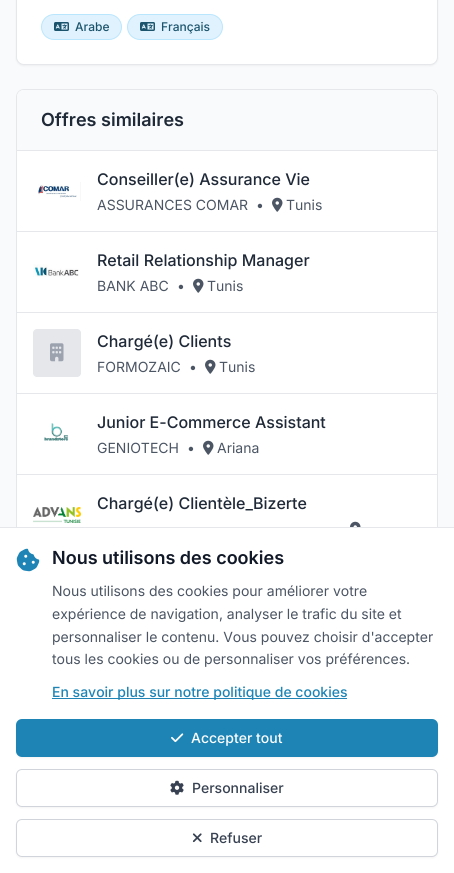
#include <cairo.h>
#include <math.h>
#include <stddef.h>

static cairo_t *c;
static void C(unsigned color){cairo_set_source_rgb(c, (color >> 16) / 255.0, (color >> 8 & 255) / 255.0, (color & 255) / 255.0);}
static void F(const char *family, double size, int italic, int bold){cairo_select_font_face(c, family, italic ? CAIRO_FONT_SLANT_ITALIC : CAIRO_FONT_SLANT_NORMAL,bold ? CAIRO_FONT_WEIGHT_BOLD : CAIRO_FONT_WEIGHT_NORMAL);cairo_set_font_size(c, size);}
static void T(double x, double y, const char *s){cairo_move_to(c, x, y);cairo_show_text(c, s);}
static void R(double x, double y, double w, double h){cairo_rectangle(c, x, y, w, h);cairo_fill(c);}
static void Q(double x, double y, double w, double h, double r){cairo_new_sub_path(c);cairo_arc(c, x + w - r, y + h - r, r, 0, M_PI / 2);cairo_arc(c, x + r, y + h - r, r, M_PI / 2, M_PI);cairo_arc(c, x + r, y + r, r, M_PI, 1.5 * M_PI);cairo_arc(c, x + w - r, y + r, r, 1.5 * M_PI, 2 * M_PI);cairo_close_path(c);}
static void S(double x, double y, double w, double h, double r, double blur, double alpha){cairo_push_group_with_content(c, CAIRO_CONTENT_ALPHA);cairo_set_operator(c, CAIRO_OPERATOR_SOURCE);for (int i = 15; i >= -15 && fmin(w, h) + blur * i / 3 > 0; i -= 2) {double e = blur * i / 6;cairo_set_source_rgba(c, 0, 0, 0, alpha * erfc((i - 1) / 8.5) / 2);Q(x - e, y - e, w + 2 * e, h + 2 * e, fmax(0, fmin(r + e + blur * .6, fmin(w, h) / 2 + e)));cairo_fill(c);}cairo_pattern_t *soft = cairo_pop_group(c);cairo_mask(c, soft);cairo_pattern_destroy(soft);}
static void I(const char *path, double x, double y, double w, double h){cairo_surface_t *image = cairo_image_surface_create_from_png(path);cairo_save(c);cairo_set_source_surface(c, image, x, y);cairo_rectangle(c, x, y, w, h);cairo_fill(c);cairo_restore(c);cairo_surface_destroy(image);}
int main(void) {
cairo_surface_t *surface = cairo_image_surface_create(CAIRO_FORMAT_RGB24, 454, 873);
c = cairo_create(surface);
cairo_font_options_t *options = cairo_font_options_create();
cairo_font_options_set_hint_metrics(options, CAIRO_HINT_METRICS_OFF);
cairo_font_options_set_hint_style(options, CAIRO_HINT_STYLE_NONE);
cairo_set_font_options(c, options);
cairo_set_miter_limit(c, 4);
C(0xf9fafb);
cairo_paint(c);
C(0x000000);
S(16,-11,422,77,8,1,.05);
C(0xffffff);
Q(16.5,-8.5,421,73,7.5);
cairo_fill_preserve(c);
C(0xe5e7eb);
cairo_set_line_width(c,1);
cairo_stroke(c);
C(0xe0f2fe);
Q(41.5,14.5,80,25,12.5);
cairo_fill_preserve(c);
C(0xbae6fd);
cairo_stroke(c);
I("1.png",54,22,15,9);
F("Inter Medium",12,0,0);
C(0x1b546c);
T(75,31,"Arabe");
C(0xe0f2fe);
Q(127.5,14.5,95,25,12.5);
cairo_fill_preserve(c);
C(0xbae6fd);
cairo_stroke(c);
I("1.png",140,22,15,9);
C(0x1b546c);
T(161,31,"Français");
C(0xffffff);
Q(16.5,89.5,421,466,7.5);
cairo_fill_preserve(c);
C(0xe5e7eb);
cairo_stroke(c);
C(0xf9fafb);
cairo_new_path(c);
cairo_move_to(c,24,90);
cairo_line_to(c,430,90);
cairo_curve_to(c,434,90,437,93,437,97);
cairo_line_to(c,437,150);
cairo_line_to(c,17,150);
cairo_line_to(c,17,97);
cairo_curve_to(c,17,93,20,90,24,90);
cairo_close_path(c);
cairo_fill(c);
C(0xe5e7eb);
R(17,150,420,1);
F("Inter SemiBold",18,0,0);
C(0x1f2937);
T(41,126,"Offres similaires");
I("2.png",38,182,43,19);
F("Inter Medium",16,0,0);
T(97,185,"Conseiller(e) Assurance Vie");
F("Inter",14,0,0);
C(0x4b5563);
T(97,210,"ASSURANCES COMAR");
T(256,210,"•");
I("3.png",272,197,11,15);
T(286,210,"Tunis");
C(0xe5e7eb);
R(17,231,420,1);
I("4.png",33,264,46,13);
F("Inter Medium",16,0,0);
C(0x1f2937);
T(97,266,"Retail Relationship Manager");
F("Inter",14,0,0);
C(0x4b5563);
T(97,291,"BANK ABC");
T(177,291,"•");
I("3.png",193,278,11,15);
T(207,291,"Tunis");
C(0xe5e7eb);
R(17,312,420,1);
Q(33,329,48,48,4);
cairo_fill(c);
I("5.png",50,343,14,19);
F("Inter Medium",16,0,0);
C(0x1f2937);
T(97,347,"Chargé(e) Clients");
F("Inter",14,0,0);
C(0x4b5563);
T(97,372,"FORMOZAIC");
T(189,372,"•");
I("3.png",205,359,11,15);
T(219,372,"Tunis");
C(0xe5e7eb);
R(17,393,420,1);
I("6.png",44,423,25,18);
F("Inter Medium",16,0,0);
C(0x1f2937);
T(97,428,"Junior E-Commerce Assistant");
F("Inter",14,0,0);
C(0x4b5563);
T(97,453,"GENIOTECH");
T(187,453,"•");
I("3.png",203,440,11,15);
T(217,453,"Ariana");
C(0xe5e7eb);
R(17,474,420,1);
F("Inter Medium",16,0,0);
C(0x1f2937);
T(97,509,"Chargé(e) Clientèle_Bizerte");
I("7.png",350,521,11,6);
I("8.png",33,507,48,16);
C(0xffffff);
R(0,528,454,345);
C(0xe5e7eb);
R(0,527,454,1);
I("9.png",16,548,24,24);
F("Inter SemiBold",18,0,0);
C(0x111827);
T(52,564,"Nous utilisons des cookies");
F("Inter",14,0,0);
C(0x4b5563);
T(52,596,"Nous utilisons des cookies pour améliorer votre");
T(52,619,"expérience de navigation, analyser le trafic du site et");
T(52,642,"personnaliser le contenu. Vous pouvez choisir d'accepter");
T(52,664,"tous les cookies ou de personnaliser vos préférences.");
C(0x1d84b5);
R(52,698,295,1);
F("Inter Medium",14,0,0);
T(52,697,"En savoir plus sur notre politique de cookies");
C(0x000000);
S(16,720,422,38,6,1,.05);
C(0x1d84b5);
Q(16,719,422,38,6);
cairo_fill(c);
I("10.png",171,733,13,10);
C(0xffffff);
T(191,743,"Accepter tout");
C(0x000000);
S(16,770,422,38,6,1,.05);
C(0xffffff);
Q(16.5,769.5,421,37,5.5);
cairo_fill_preserve(c);
C(0xd1d5db);
cairo_stroke(c);
I("11.png",170,780,14,15);
C(0x374151);
T(192,793,"Personnaliser");
C(0x000000);
S(16,820,422,38,6,1,.05);
C(0xffffff);
Q(16.5,819.5,421,37,5.5);
cairo_fill_preserve(c);
C(0xd1d5db);
cairo_stroke(c);
I("12.png",192,833,10,10);
C(0x374151);
T(210,843,"Refuser");
cairo_surface_write_to_png(surface, "o.png");
cairo_font_options_destroy(options);
cairo_destroy(c);
cairo_surface_destroy(surface);
return 0;
}
